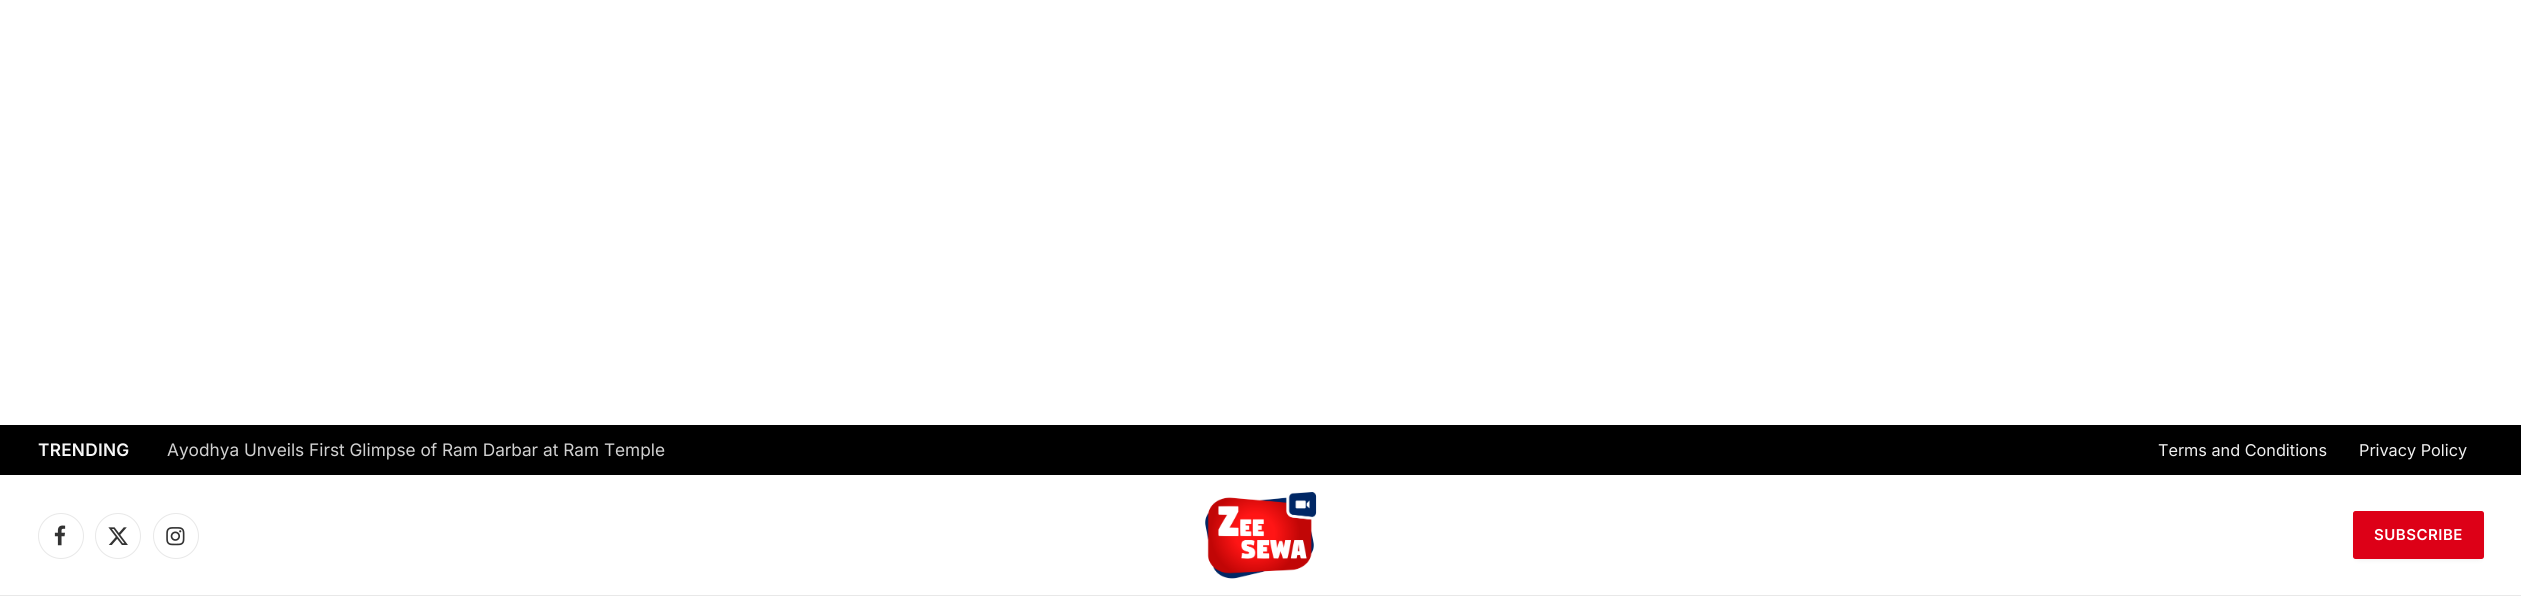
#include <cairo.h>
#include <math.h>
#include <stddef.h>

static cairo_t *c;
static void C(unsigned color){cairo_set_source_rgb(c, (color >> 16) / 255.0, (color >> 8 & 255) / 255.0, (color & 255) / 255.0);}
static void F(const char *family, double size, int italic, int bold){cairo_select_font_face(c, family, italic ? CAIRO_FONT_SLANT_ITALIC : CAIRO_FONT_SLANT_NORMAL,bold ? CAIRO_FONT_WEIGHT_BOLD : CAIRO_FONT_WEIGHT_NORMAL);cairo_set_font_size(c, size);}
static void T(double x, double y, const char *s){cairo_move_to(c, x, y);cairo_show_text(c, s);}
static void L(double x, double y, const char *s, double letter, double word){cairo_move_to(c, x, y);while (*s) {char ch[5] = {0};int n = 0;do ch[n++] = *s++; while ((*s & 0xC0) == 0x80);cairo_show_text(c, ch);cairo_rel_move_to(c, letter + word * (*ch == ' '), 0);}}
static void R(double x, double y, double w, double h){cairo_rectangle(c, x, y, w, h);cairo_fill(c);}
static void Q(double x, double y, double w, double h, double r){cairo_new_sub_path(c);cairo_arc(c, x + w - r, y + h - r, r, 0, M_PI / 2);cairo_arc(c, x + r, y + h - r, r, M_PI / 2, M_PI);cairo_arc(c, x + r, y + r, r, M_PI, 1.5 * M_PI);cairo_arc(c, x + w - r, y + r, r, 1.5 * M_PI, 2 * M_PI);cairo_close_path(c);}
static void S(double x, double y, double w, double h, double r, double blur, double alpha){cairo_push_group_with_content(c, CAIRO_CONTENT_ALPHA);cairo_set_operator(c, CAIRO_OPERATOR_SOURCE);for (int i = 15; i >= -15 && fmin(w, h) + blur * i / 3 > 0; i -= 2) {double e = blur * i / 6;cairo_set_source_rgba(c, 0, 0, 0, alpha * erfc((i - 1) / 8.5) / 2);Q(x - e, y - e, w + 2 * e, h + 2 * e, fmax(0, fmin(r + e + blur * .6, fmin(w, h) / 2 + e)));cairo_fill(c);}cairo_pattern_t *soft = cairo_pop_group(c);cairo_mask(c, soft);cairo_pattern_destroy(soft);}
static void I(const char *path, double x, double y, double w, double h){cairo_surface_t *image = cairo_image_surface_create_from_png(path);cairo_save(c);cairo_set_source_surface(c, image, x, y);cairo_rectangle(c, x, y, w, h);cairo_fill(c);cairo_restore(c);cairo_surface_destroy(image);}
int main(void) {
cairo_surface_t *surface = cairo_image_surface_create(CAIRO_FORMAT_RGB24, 2521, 615);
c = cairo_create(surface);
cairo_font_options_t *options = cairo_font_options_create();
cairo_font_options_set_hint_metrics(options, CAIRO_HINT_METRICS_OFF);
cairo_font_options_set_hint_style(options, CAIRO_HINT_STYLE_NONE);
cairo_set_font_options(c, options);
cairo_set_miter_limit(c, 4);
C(0xffffff);
cairo_paint(c);
C(0x000000);
R(0,425,2521,50);
F("Inter SemiBold",17.25,0,0);
C(0xf7f7f7);
L(38,456,"TRENDING",.25,0);
F("Inter",17.25,0,0);
C(0xd1d1d1);
T(167,456,"Ayodhya Unveils First Glimpse of Ram Darbar at Ram Temple");
F("Inter",16.25,0,0);
C(0xf0f0f0);
T(2158,456,"Terms and Conditions");
T(2359,456,"Privacy Policy");
cairo_new_path(c);
cairo_arc(c,61,536,22.5,0,2 * M_PI);
C(0xe8e8e8);
cairo_set_line_width(c,1);
cairo_stroke(c);
I("1.png",54,525,12,21);
cairo_arc(c,118,536,22.5,0,2 * M_PI);
cairo_stroke(c);
I("2.png",108,527,20,18);
cairo_arc(c,176,536,22.5,0,2 * M_PI);
cairo_stroke(c);
I("3.png",166,527,19,19);
I("4.png",1205,492,112,87);
C(0x000000);
S(2358,519,121,37,0,4.5,.16);
C(0xdd0017);
Q(2353,511,131,48,2.5);
cairo_fill(c);
F("Inter SemiBold",15,0,0);
C(0xffffff);
L(2374,540,"SUBSCRIBE",.5,0);
C(0xe8e8e8);
R(0,595,2521,1);
cairo_surface_write_to_png(surface, "o.png");
cairo_font_options_destroy(options);
cairo_destroy(c);
cairo_surface_destroy(surface);
return 0;
}
